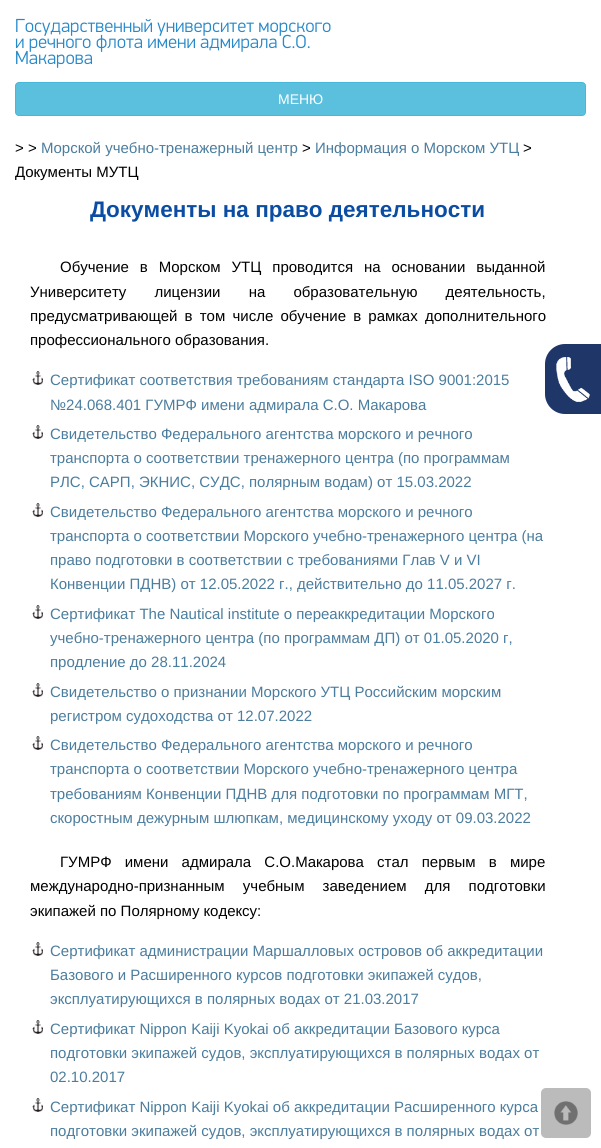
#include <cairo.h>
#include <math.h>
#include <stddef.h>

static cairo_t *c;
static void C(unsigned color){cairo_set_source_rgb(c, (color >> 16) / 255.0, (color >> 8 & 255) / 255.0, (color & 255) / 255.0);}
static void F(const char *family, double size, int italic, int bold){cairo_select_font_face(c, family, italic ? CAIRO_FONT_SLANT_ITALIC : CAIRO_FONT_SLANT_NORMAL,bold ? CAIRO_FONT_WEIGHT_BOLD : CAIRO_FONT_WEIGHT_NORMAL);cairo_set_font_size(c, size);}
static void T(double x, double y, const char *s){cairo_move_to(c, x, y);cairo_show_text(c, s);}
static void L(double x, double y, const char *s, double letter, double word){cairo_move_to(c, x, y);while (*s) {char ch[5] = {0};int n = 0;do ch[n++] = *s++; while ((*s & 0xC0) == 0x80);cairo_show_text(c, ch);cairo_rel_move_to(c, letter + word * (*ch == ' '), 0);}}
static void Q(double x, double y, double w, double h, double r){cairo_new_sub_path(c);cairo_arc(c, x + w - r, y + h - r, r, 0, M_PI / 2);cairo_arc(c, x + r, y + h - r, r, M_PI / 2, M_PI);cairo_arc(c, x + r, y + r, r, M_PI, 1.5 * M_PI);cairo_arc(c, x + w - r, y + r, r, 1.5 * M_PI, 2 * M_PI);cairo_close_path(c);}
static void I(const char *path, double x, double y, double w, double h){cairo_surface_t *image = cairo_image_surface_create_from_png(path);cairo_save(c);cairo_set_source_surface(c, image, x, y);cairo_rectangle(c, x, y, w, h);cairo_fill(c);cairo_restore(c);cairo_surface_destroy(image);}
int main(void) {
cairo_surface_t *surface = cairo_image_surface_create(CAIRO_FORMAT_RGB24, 601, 1148);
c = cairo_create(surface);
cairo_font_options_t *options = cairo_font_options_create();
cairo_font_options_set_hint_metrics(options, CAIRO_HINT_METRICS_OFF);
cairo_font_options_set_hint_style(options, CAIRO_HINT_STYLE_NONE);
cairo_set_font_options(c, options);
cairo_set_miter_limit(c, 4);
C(0xffffff);
cairo_paint(c);
F("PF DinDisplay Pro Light",19,0,0);
C(0x2689ca);
T(15,32,"Государственный университет морского");
T(15,48,"и речного флота имени адмирала С.О.");
T(15,64,"Макарова");
C(0x5bc0de);
Q(15.5,82.5,570,33,3.5);
cairo_fill_preserve(c);
C(0x46b8da);
cairo_set_line_width(c,1);
cairo_stroke(c);
F("Liberation Sans",14,0,0);
C(0xffffff);
T(278,104,"МЕНЮ");
F("Liberation Sans",15,0,0);
C(0x000000);
T(15,153,"> >");
C(0x4b7d9e);
T(41,153,"Морской учебно-тренажерный центр");
C(0x000000);
T(302,153,">");
C(0x4b7d9e);
T(315,153,"Информация о Морском УТЦ");
C(0x000000);
T(523,153,">");
T(15,177,"Документы МУТЦ");
F("Liberation Sans",22.5,0,1);
C(0x0b4da2);
T(90,217,"Документы на право деятельности");
F("Liberation Sans",15,0,0);
C(0x000000);
L(60,272,"Обучение в Морском УТЦ проводится на основании выданной",0,6.75);
L(30,297,"Университету лицензии на образовательную деятельность,",0,24);
L(30,321,"предусматривающей в том числе обучение в рамках дополнительного",0,3);
T(30,345,"профессионального образования.");
I("1.png",32,371,11,14);
C(0x4b7d9e);
T(50,385,"Сертификат соответствия требованиям стандарта ISO 9001:2015");
T(50,410,"№24.068.401 ГУМРФ имени адмирала С.О. Макарова");
I("1.png",32,425,11,14);
T(50,439,"Свидетельство Федерального агентства морского и речного");
T(50,463,"транспорта о соответствии тренажерного центра (по программам");
T(50,487,"РЛС, САРП, ЭКНИС, СУДС, полярным водам) от 15.03.2022");
I("1.png",32,503,11,14);
T(50,517,"Свидетельство Федерального агентства морского и речного");
T(50,541,"транспорта о соответствии Морского учебно-тренажерного центра (на");
T(50,565,"право подготовки в соответствии с требованиями Глав V и VI");
T(50,589,"Конвенции ПДНВ) от 12.05.2022 г., действительно до 11.05.2027 г.");
I("1.png",32,605,11,14);
T(50,619,"Сертификат The Nautical institute о переаккредитации Морского");
T(50,643,"учебно-тренажерного центра (по программам ДП) от 01.05.2020 г,");
T(50,667,"продление до 28.11.2024");
I("1.png",32,683,11,14);
T(50,697,"Свидетельство о признании Морского УТЦ Российским морским");
T(50,721,"регистром судоходства от 12.07.2022");
I("1.png",32,736,11,14);
T(50,750,"Свидетельство Федерального агентства морского и речного");
T(50,774,"транспорта о соответствии Морского учебно-тренажерного центра");
T(50,799,"требованиям Конвенции ПДНВ для подготовки по программам МГТ,");
T(50,823,"скоростным дежурным шлюпкам, медицинскому уходу от 09.03.2022");
C(0x000000);
L(60,867,"ГУМРФ имени адмирала С.О.Макарова стал первым в мире",0,9);
L(30,891,"международно-признанным учебным заведением для подготовки",0,14);
T(30,916,"экипажей по Полярному кодексу:");
I("1.png",32,942,11,14);
C(0x4b7d9e);
T(50,956,"Сертификат администрации Маршалловых островов об аккредитации");
T(50,980,"Базового и Расширенного курсов подготовки экипажей судов,");
T(50,1004,"эксплуатирующихся в полярных водах от 21.03.2017");
I("1.png",32,1020,11,14);
T(50,1034,"Сертификат Nippon Kaiji Kyokai об аккредитации Базового курса");
T(50,1058,"подготовки экипажей судов, эксплуатирующихся в полярных водах от");
T(50,1082,"02.10.2017");
I("1.png",32,1098,11,14);
T(50,1112,"Сертификат Nippon Kaiji Kyokai об аккредитации Расширенного курса");
T(50,1136,"подготовки экипажей судов, эксплуатирующихся в полярных водах от");
C(0x1f3668);
cairo_new_path(c);
cairo_move_to(c,565,344);
cairo_line_to(c,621,344);
cairo_line_to(c,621,414);
cairo_line_to(c,565,414);
cairo_curve_to(c,554,414,545,405,545,394);
cairo_line_to(c,545,364);
cairo_curve_to(c,545,353,554,344,565,344);
cairo_close_path(c);
cairo_fill(c);
I("2.png",556,357,34,45);
C(0xbbbbbb);
Q(541,1088,50,50,5);
cairo_fill(c);
I("3.png",554,1101,24,24);
cairo_surface_write_to_png(surface, "o.png");
cairo_font_options_destroy(options);
cairo_destroy(c);
cairo_surface_destroy(surface);
return 0;
}
